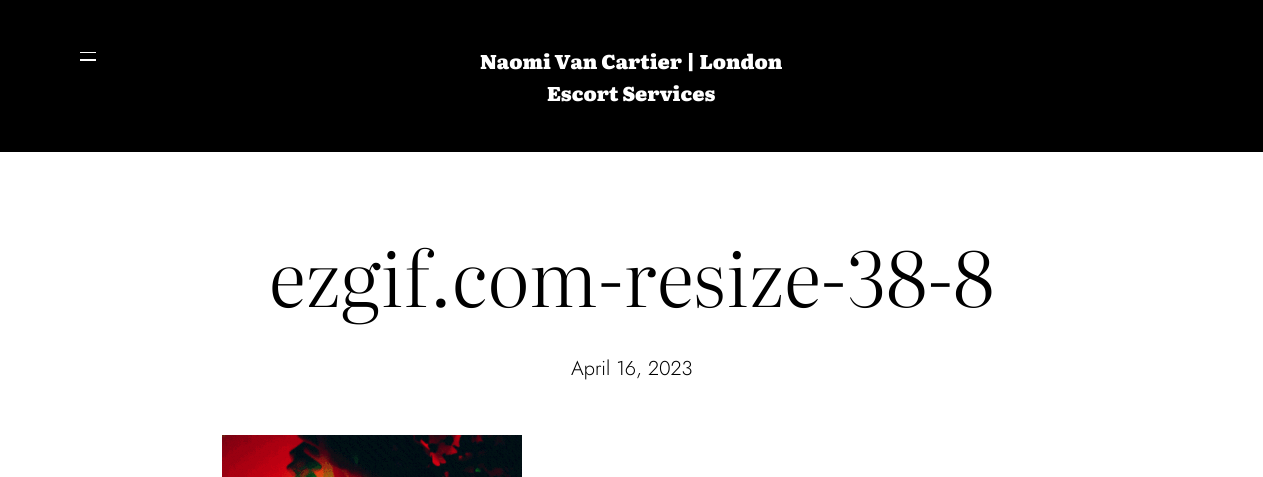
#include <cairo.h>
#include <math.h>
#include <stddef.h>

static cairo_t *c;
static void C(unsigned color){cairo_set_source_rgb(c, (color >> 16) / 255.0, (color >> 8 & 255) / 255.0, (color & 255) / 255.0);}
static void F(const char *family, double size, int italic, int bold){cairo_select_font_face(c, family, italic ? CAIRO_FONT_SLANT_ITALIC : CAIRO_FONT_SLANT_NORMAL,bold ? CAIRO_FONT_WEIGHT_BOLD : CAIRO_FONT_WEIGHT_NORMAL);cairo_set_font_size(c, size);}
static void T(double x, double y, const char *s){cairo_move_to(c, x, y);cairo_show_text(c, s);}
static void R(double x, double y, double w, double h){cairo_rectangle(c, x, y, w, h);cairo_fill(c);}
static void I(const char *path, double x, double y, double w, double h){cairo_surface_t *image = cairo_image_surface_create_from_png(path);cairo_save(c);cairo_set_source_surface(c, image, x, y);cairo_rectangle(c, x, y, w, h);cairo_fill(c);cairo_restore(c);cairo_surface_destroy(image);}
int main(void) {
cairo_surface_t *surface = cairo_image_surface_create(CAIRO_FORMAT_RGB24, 1263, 477);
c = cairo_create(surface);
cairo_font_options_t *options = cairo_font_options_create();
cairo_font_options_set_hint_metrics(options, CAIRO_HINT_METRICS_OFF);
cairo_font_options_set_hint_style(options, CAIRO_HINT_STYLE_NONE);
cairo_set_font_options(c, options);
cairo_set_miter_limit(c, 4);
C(0xffffff);
cairo_paint(c);
C(0x000000);
R(0,0,1263,152);
C(0xffffff);
R(80,52,16,1);
R(80,59,16,2);
F("Literata Black",20,0,0);
T(480,69,"Naomi Van Cartier | London");
T(547,101,"Escort Services");
F("Literata Light",75.75,0,0);
C(0x000000);
T(269,307,"ezgif.com-resize-38-8");
F("Jost Light",20,0,0);
T(571,375,"April 16, 2023");
I("1.png",222,435,300,42);
cairo_surface_write_to_png(surface, "o.png");
cairo_font_options_destroy(options);
cairo_destroy(c);
cairo_surface_destroy(surface);
return 0;
}
